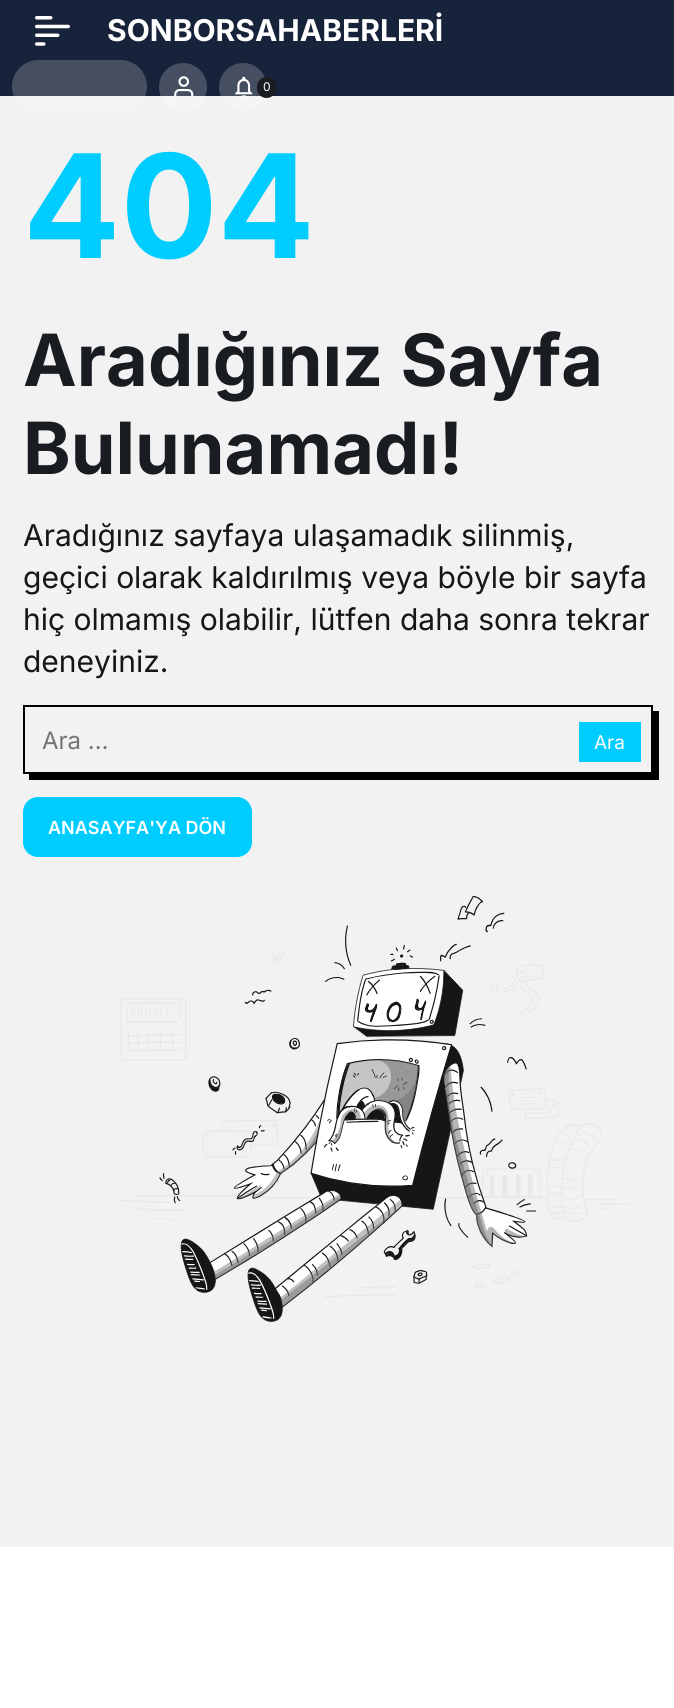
#include <cairo.h>
#include <math.h>
#include <stddef.h>

static cairo_t *c;
static void C(unsigned color){cairo_set_source_rgb(c, (color >> 16) / 255.0, (color >> 8 & 255) / 255.0, (color & 255) / 255.0);}
static void F(const char *family, double size, int italic, int bold){cairo_select_font_face(c, family, italic ? CAIRO_FONT_SLANT_ITALIC : CAIRO_FONT_SLANT_NORMAL,bold ? CAIRO_FONT_WEIGHT_BOLD : CAIRO_FONT_WEIGHT_NORMAL);cairo_set_font_size(c, size);}
static void T(double x, double y, const char *s){cairo_move_to(c, x, y);cairo_show_text(c, s);}
static void R(double x, double y, double w, double h){cairo_rectangle(c, x, y, w, h);cairo_fill(c);}
static void Q(double x, double y, double w, double h, double r){cairo_new_sub_path(c);cairo_arc(c, x + w - r, y + h - r, r, 0, M_PI / 2);cairo_arc(c, x + r, y + h - r, r, M_PI / 2, M_PI);cairo_arc(c, x + r, y + r, r, M_PI, 1.5 * M_PI);cairo_arc(c, x + w - r, y + r, r, 1.5 * M_PI, 2 * M_PI);cairo_close_path(c);}
static void I(const char *path, double x, double y, double w, double h){cairo_surface_t *image = cairo_image_surface_create_from_png(path);cairo_save(c);cairo_set_source_surface(c, image, x, y);cairo_rectangle(c, x, y, w, h);cairo_fill(c);cairo_restore(c);cairo_surface_destroy(image);}
int main(void) {
cairo_surface_t *surface = cairo_image_surface_create(CAIRO_FORMAT_RGB24, 674, 1708);
c = cairo_create(surface);
cairo_font_options_t *options = cairo_font_options_create();
cairo_font_options_set_hint_metrics(options, CAIRO_HINT_METRICS_OFF);
cairo_font_options_set_hint_style(options, CAIRO_HINT_STYLE_NONE);
cairo_set_font_options(c, options);
cairo_set_miter_limit(c, 4);
C(0xffffff);
cairo_paint(c);
C(0xf2f2f3);
R(0,96,674,1451);
C(0x17233a);
R(0,0,674,96);
I("1.png",35,16,35,30);
F("Inter",30,0,1);
C(0xffffff);
T(107,41,"SONBORSAHABERLERİ");
cairo_set_source_rgba(c,1,1,1,0.2);
Q(12,60,135,53,26.5);
cairo_fill(c);
cairo_arc(c,183,87,24,0,2 * M_PI);
cairo_fill(c);
I("2.png",174,76,20,22);
cairo_arc(c,243,87,24,0,2 * M_PI);
cairo_fill(c);
I("3.png",235,76,18,22);
C(0x191c20);
Q(257,77,19,21,9.5);
cairo_fill(c);
F("Inter",12,0,0);
C(0xffffff);
T(263,91,"0");
F("Inter",144,0,1);
C(0x00cdff);
T(23,258,"404");
F("Inter",72,0,1);
C(0x191c20);
T(23,386,"Aradığınız Sayfa");
T(23,474,"Bulunamadı!");
F("Inter",30,0,0);
C(0x161616);
T(23,546,"Aradığınız sayfaya ulaşamadık silinmiş,");
T(23,588,"geçici olarak kaldırılmış veya böyle bir sayfa");
T(23,630,"hiç olmamış olabilir, lütfen daha sonra tekrar");
T(23,672,"deneyiniz.");
C(0x000000);
cairo_new_path(c);
cairo_move_to(c,29,774);
cairo_line_to(c,29,780);
cairo_line_to(c,659,780);
cairo_line_to(c,659,711);
cairo_line_to(c,652,711);
cairo_line_to(c,652,774);
cairo_close_path(c);
cairo_fill(c);
cairo_rectangle(c,24,706,628,67);
cairo_stroke(c);
F("Inter",24,0,0);
C(0x757575);
T(42,749,"Ara …");
C(0x00cdff);
R(579,722,62,40);
F("Inter",19,0,0);
C(0xffffff);
T(594,749,"Ara");
C(0x00cdff);
Q(23,797,229,60,15);
cairo_fill(c);
F("Inter SemiBold",18,0,0);
C(0xffffff);
T(48,834,"ANASAYFA'YA DÖN");
I("4.png",119,896,511,426);
cairo_surface_write_to_png(surface, "o.png");
cairo_font_options_destroy(options);
cairo_destroy(c);
cairo_surface_destroy(surface);
return 0;
}
